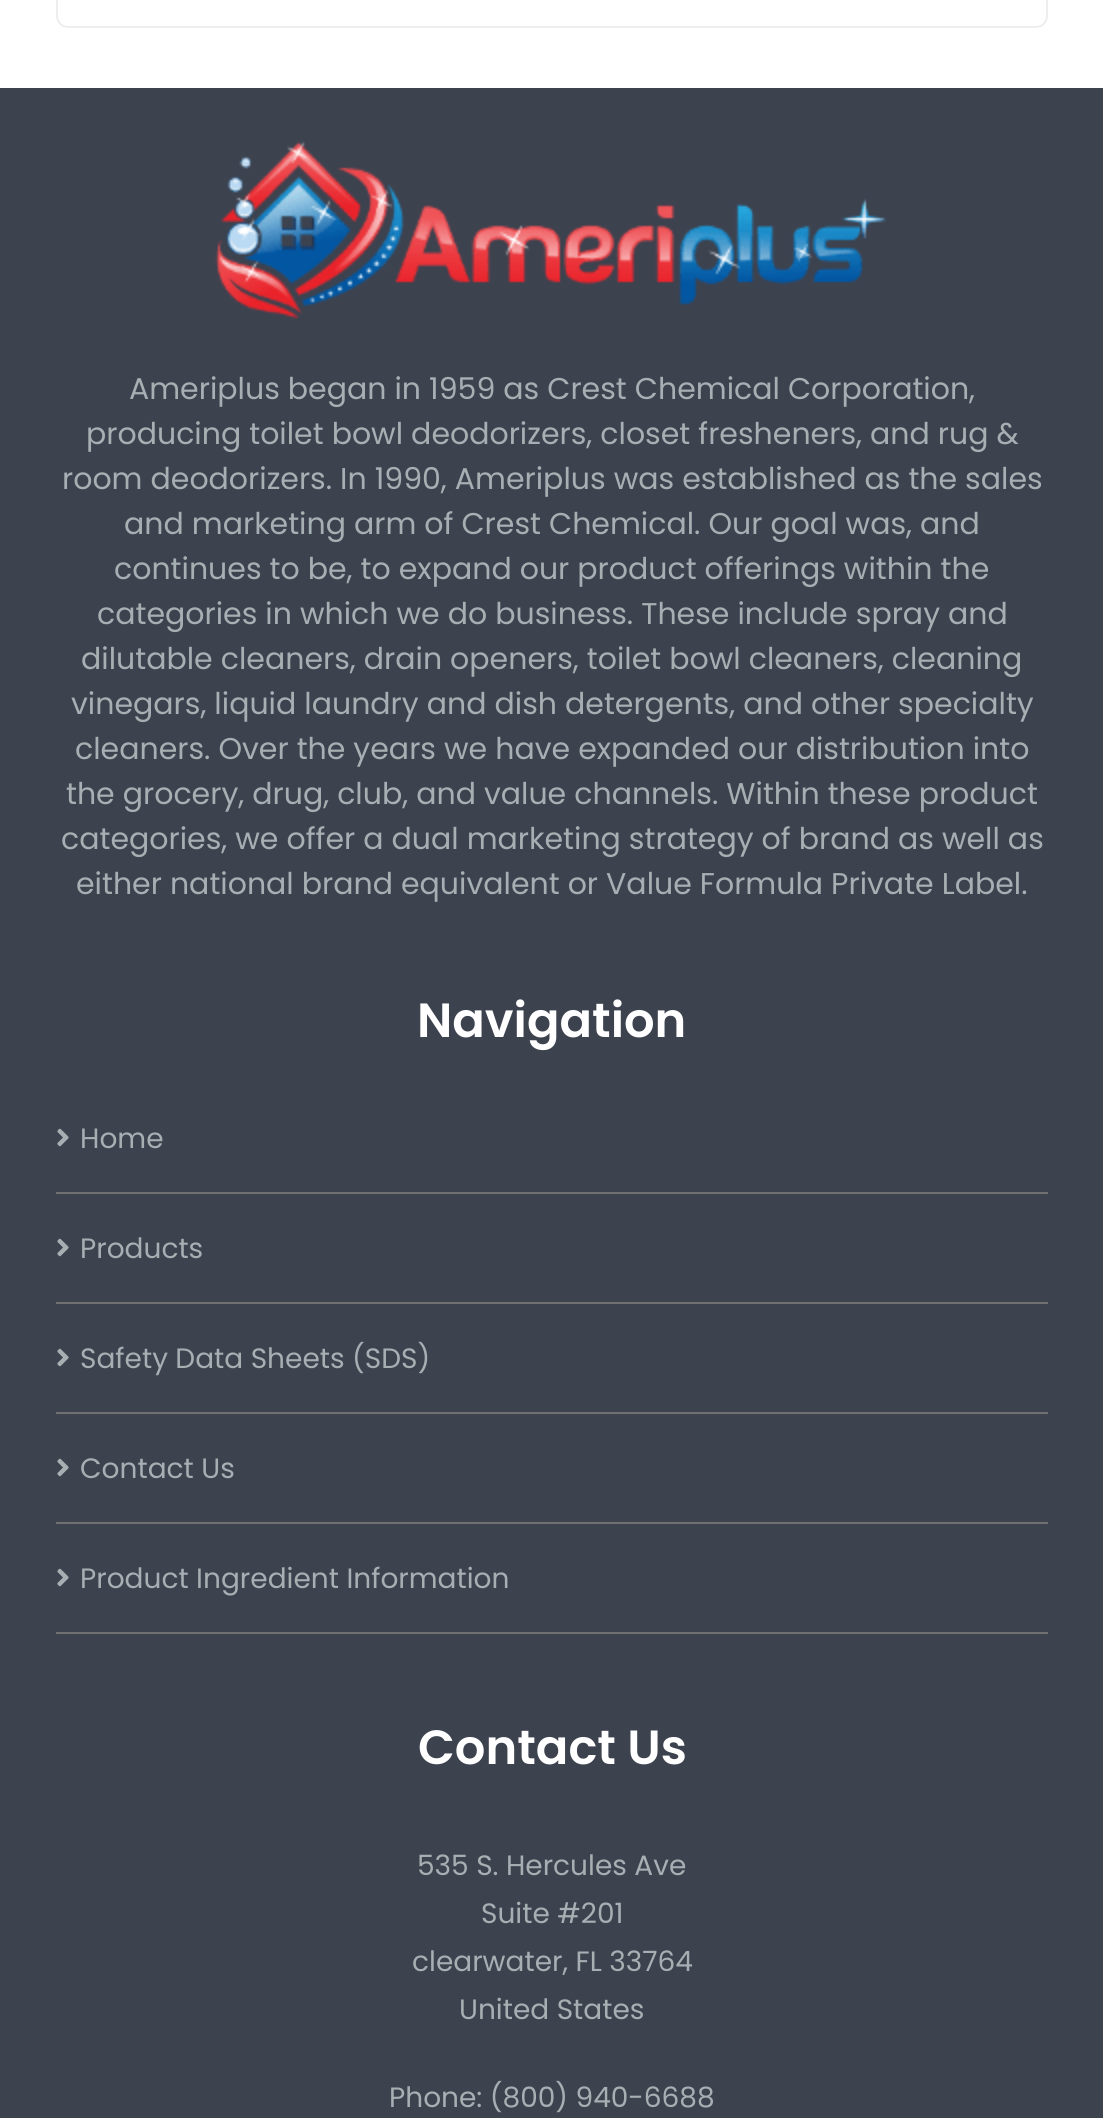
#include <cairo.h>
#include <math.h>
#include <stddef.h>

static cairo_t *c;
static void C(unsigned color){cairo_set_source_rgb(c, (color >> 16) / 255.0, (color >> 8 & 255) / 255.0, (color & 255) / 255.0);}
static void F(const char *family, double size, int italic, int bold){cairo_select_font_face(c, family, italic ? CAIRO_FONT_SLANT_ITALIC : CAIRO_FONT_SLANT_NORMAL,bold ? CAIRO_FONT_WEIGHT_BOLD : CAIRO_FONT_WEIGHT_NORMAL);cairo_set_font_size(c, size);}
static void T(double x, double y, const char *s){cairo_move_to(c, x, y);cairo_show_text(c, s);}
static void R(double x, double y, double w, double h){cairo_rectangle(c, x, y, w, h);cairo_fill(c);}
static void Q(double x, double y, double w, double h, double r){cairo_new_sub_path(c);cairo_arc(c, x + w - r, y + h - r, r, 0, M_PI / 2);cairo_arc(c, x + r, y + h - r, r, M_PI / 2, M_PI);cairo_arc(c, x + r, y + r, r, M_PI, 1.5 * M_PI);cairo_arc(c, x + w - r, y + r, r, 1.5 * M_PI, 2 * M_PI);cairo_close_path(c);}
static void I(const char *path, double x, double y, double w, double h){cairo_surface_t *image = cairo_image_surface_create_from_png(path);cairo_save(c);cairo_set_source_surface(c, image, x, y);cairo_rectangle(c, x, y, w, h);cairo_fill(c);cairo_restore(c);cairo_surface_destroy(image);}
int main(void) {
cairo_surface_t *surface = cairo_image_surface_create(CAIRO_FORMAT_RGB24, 1103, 2118);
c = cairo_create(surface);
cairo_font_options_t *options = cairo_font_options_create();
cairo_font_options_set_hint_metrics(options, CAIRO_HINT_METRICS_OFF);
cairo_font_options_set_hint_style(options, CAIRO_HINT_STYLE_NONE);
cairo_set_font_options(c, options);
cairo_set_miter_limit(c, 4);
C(0xffffff);
cairo_paint(c);
Q(57,-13,990,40,11);
C(0xeeeeee);
cairo_stroke(c);
C(0x3d424f);
R(0,88,1103,2030);
I("1.png",215,141,672,178);
F("Poppins",30,0,0);
C(0xa6b0b3);
T(129,399,"Ameriplus began in 1959 as Crest Chemical Corporation,");
T(86,444,"producing toilet bowl deodorizers, closet fresheners, and rug &");
T(62,489,"room deodorizers. In 1990, Ameriplus was established as the sales");
T(124,534,"and marketing arm of Crest Chemical. Our goal was, and");
T(114,579,"continues to be, to expand our product offerings within the");
T(97,624,"categories in which we do business. These include spray and");
T(81,669,"dilutable cleaners, drain openers, toilet bowl cleaners, cleaning");
T(71,714,"vinegars, liquid laundry and dish detergents, and other specialty");
T(75,759,"cleaners. Over the years we have expanded our distribution into");
T(66,804,"the grocery, drug, club, and value channels. Within these product");
T(61,849,"categories, we offer a dual marketing strategy of brand as well as");
T(76,894,"either national brand equivalent or Value Formula Private Label.");
F("Poppins SemiBold",48,0,0);
C(0xffffff);
T(417,1037,"Navigation");
C(0x707070);
R(56,1192,992,2);
I("2.png",57,1128,12,19);
F("Poppins",28,0,0);
C(0xa6b0b3);
T(80,1148,"Home");
C(0x707070);
R(56,1302,992,2);
I("2.png",57,1238,12,19);
C(0xa6b0b3);
T(80,1258,"Products");
C(0x707070);
R(56,1412,992,2);
I("2.png",57,1348,12,19);
C(0xa6b0b3);
T(80,1368,"Safety Data Sheets (SDS)");
C(0x707070);
R(56,1522,992,2);
I("2.png",57,1458,12,19);
C(0xa6b0b3);
T(80,1478,"Contact Us");
C(0x707070);
R(56,1632,992,2);
I("2.png",57,1568,12,19);
C(0xa6b0b3);
T(80,1588,"Product Ingredient Information");
F("Poppins SemiBold",48,0,0);
C(0xffffff);
T(418,1764,"Contact Us");
F("Poppins",28,0,0);
C(0xa6b0b3);
T(417,1875,"535 S. Hercules Ave");
T(481,1923,"Suite #201");
T(412,1971,"clearwater, FL 33764");
T(459,2019,"United States");
T(389,2107,"Phone: (800) 940-6688");
cairo_surface_write_to_png(surface, "o.png");
cairo_font_options_destroy(options);
cairo_destroy(c);
cairo_surface_destroy(surface);
return 0;
}
